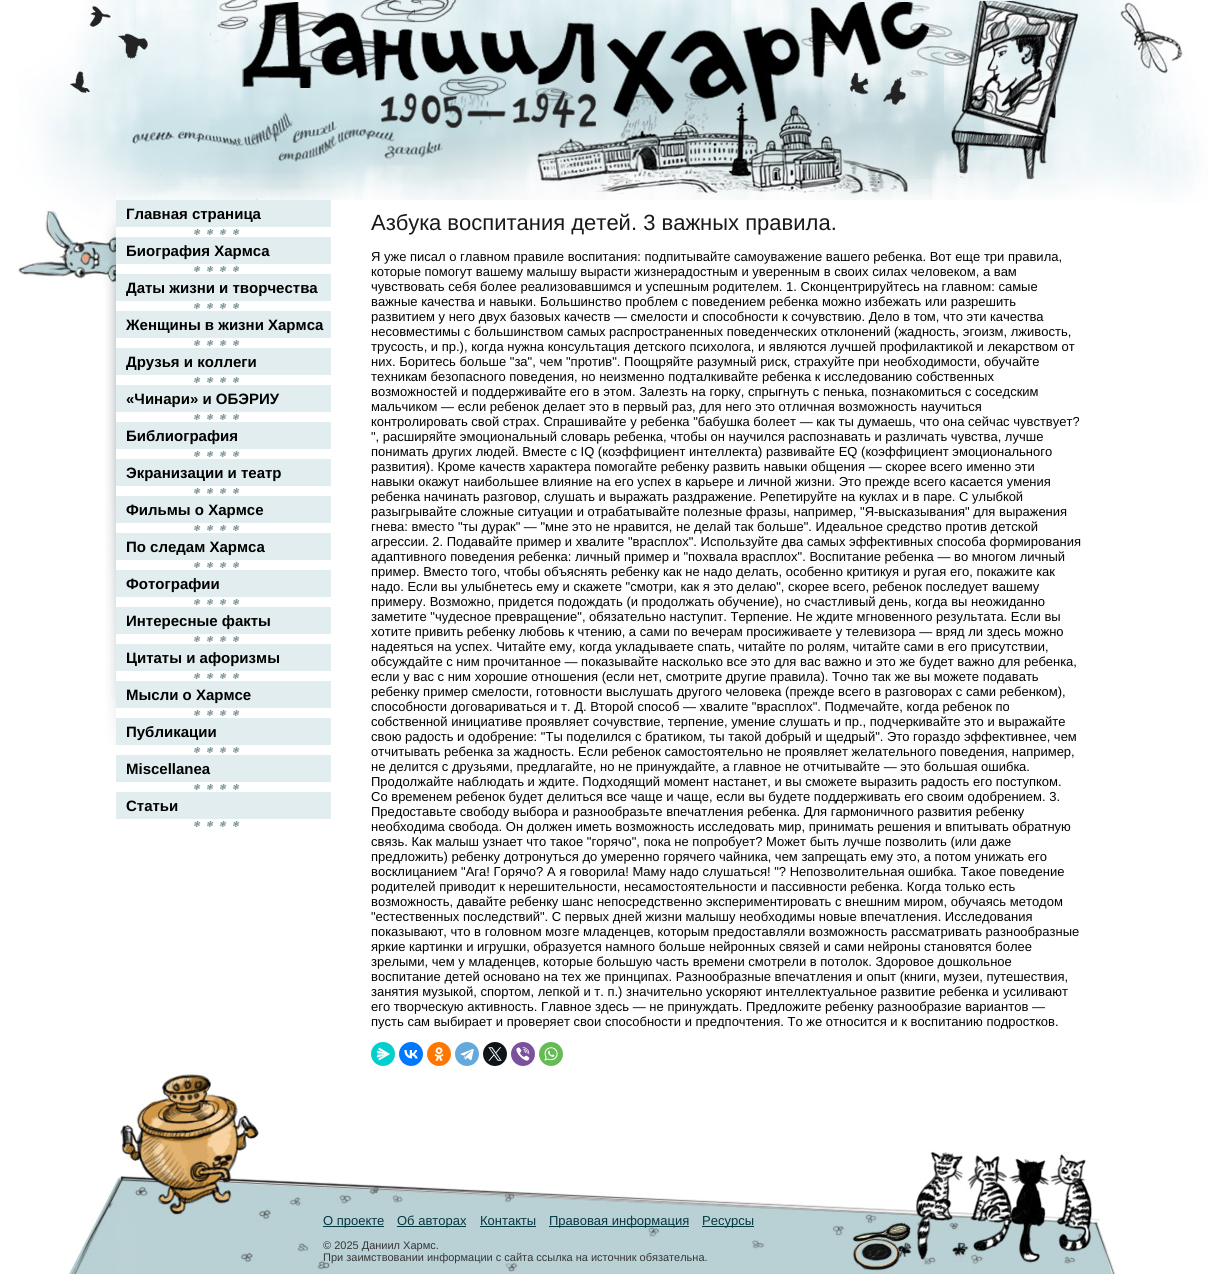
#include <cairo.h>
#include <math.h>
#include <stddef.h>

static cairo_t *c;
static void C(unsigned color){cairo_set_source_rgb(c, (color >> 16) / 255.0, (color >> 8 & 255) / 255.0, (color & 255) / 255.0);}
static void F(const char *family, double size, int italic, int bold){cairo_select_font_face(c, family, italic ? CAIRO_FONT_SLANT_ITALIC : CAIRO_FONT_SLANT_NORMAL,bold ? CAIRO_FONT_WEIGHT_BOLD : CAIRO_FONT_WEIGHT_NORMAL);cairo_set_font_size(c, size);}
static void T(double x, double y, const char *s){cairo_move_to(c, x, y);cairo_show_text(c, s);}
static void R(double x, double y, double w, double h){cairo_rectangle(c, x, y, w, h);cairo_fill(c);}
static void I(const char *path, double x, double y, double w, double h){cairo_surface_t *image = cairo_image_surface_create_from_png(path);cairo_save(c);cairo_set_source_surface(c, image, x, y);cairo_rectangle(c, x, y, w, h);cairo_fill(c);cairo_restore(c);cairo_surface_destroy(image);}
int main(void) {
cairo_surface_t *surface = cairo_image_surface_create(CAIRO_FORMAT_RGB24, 1232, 1280);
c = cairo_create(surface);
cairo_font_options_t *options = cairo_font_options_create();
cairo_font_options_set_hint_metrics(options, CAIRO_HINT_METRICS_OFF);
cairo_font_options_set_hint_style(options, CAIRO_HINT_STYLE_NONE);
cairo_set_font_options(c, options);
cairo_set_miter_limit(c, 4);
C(0xffffff);
cairo_paint(c);
I("1.png",105,288,11,458);
I("2.png",18,0,98,288);
I("3.png",1116,0,92,203);
I("4.png",116,0,1000,200);
C(0xe1edef);
R(116,237,215,582);
R(116,200,215,27);
F("Liberation Sans",15,0,1);
C(0x000000);
T(126,219,"Главная страница");
I("5.png",194,229,46,6);
T(126,256,"Биография Хармса");
C(0xffffff);
R(116,264,215,10);
I("5.png",194,266,46,6);
C(0x000000);
T(126,293,"Даты жизни и творчества");
C(0xffffff);
R(116,301,215,10);
I("5.png",194,303,46,6);
C(0x000000);
T(126,330,"Женщины в жизни Хармса");
C(0xffffff);
R(116,338,215,10);
I("5.png",194,340,46,6);
C(0x000000);
T(126,367,"Друзья и коллеги");
C(0xffffff);
R(116,375,215,10);
I("5.png",194,377,46,6);
C(0x000000);
T(126,404,"«Чинари» и ОБЭРИУ");
C(0xffffff);
R(116,412,215,10);
I("5.png",194,414,46,6);
C(0x000000);
T(126,441,"Библиография");
C(0xffffff);
R(116,449,215,10);
I("5.png",194,451,46,6);
C(0x000000);
T(126,478,"Экранизации и театр");
C(0xffffff);
R(116,486,215,10);
I("5.png",194,488,46,6);
C(0x000000);
T(126,515,"Фильмы о Хармсе");
C(0xffffff);
R(116,523,215,10);
I("5.png",194,525,46,6);
C(0x000000);
T(126,552,"По следам Хармса");
C(0xffffff);
R(116,560,215,10);
I("5.png",194,562,46,6);
C(0x000000);
T(126,589,"Фотографии");
C(0xffffff);
R(116,597,215,10);
I("5.png",194,599,46,6);
C(0x000000);
T(126,626,"Интересные факты");
C(0xffffff);
R(116,634,215,10);
I("5.png",194,636,46,6);
C(0x000000);
T(126,663,"Цитаты и афоризмы");
C(0xffffff);
R(116,671,215,10);
I("5.png",194,673,46,6);
C(0x000000);
T(126,700,"Мысли о Хармсе");
C(0xffffff);
R(116,708,215,10);
I("5.png",194,710,46,6);
C(0x000000);
T(126,737,"Публикации");
C(0xffffff);
R(116,745,215,10);
I("5.png",194,747,46,6);
C(0x000000);
T(126,774,"Miscellanea");
C(0xffffff);
R(116,782,215,10);
I("5.png",194,784,46,6);
C(0x000000);
T(126,811,"Статьи");
I("5.png",194,821,46,6);
F("Liberation Sans",22,0,0);
C(0x17181a);
T(371,230,"Азбука воспитания детей. 3 важных правила.");
F("Liberation Sans",13,0,0);
C(0x000000);
T(371,261,"Я уже писал о главном правиле воспитания: подпитывайте самоуважение вашего ребенка. Вот еще три правила,");
T(371,276,"которые помогут вашему малышу вырасти жизнерадостным и уверенным в своих силах человеком, а вам");
T(371,291,"чувствовать себя более реализовавшимся и успешным родителем. 1. Сконцентрируйтесь на главном: самые");
T(371,306,"важные качества и навыки. Большинство проблем с поведением ребенка можно избежать или разрешить");
T(371,321,"развитием у него двух базовых качеств — смелости и способности к сочувствию. Дело в том, что эти качества");
T(371,336,"несовместимы с большинством самых распространенных поведенческих отклонений (жадность, эгоизм, лживость,");
T(371,351,"трусость, и пр.), когда нужна консультация детского психолога, и являются лучшей профилактикой и лекарством от");
T(371,366,"них. Боритесь больше \"за\", чем \"против\". Поощряйте разумный риск, страхуйте при необходимости, обучайте");
T(371,381,"техникам безопасного поведения, но неизменно подталкивайте ребенка к исследованию собственных");
T(371,396,"возможностей и поддерживайте его в этом. Залезть на горку, спрыгнуть с пенька, познакомиться с соседским");
T(371,411,"мальчиком — если ребенок делает это в первый раз, для него это отличная возможность научиться");
T(371,426,"контролировать свой страх. Спрашивайте у ребенка \"бабушка болеет — как ты думаешь, что она сейчас чувствует?");
T(371,441,"\", расширяйте эмоциональный словарь ребенка, чтобы он научился распознавать и различать чувства, лучше");
T(371,456,"понимать других людей. Вместе с IQ (коэффициент интеллекта) развивайте EQ (коэффициент эмоционального");
T(371,471,"развития). Кроме качеств характера помогайте ребенку развить навыки общения — скорее всего именно эти");
T(371,486,"навыки окажут наибольшее влияние на его успех в карьере и личной жизни. Это прежде всего касается умения");
T(371,501,"ребенка начинать разговор, слушать и выражать раздражение. Репетируйте на куклах и в паре. С улыбкой");
T(371,516,"разыгрывайте сложные ситуации и отрабатывайте полезные фразы, например, \"Я-высказывания\" для выражения");
T(371,531,"гнева: вместо \"ты дурак\" — \"мне это не нравится, не делай так больше\". Идеальное средство против детской");
T(371,546,"агрессии. 2. Подавайте пример и хвалите \"врасплох\". Используйте два самых эффективных способа формирования");
T(371,561,"адаптивного поведения ребенка: личный пример и \"похвала врасплох\". Воспитание ребенка — во многом личный");
T(371,576,"пример. Вместо того, чтобы объяснять ребенку как не надо делать, особенно критикуя и ругая его, покажите как");
T(371,591,"надо. Если вы улыбнетесь ему и скажете \"смотри, как я это делаю\", скорее всего, ребенок последует вашему");
T(371,606,"примеру. Возможно, придется подождать (и продолжать обучение), но счастливый день, когда вы неожиданно");
T(371,621,"заметите \"чудесное превращение\", обязательно наступит. Терпение. Не ждите мгновенного результата. Если вы");
T(371,636,"хотите привить ребенку любовь к чтению, а сами по вечерам просиживаете у телевизора — вряд ли здесь можно");
T(371,651,"надеяться на успех. Читайте ему, когда укладываете спать, читайте по ролям, читайте сами в его присутствии,");
T(371,666,"обсуждайте с ним прочитанное — показывайте насколько все это для вас важно и это же будет важно для ребенка,");
T(371,681,"если у вас с ним хорошие отношения (если нет, смотрите другие правила). Точно так же вы можете подавать");
T(371,696,"ребенку пример смелости, готовности выслушать другого человека (прежде всего в разговорах с сами ребенком),");
T(371,711,"способности договариваться и т. Д. Второй способ — хвалите \"врасплох\". Подмечайте, когда ребенок по");
T(371,726,"собственной инициативе проявляет сочувствие, терпение, умение слушать и пр., подчеркивайте это и выражайте");
T(371,741,"свою радость и одобрение: \"Ты поделился с братиком, ты такой добрый и щедрый\". Это гораздо эффективнее, чем");
T(371,756,"отчитывать ребенка за жадность. Если ребенок самостоятельно не проявляет желательного поведения, например,");
T(371,771,"не делится с друзьями, предлагайте, но не принуждайте, а главное не отчитывайте — это большая ошибка.");
T(371,786,"Продолжайте наблюдать и ждите. Подходящий момент настанет, и вы сможете выразить радость его поступком.");
T(371,801,"Со временем ребенок будет делиться все чаще и чаще, если вы будете поддерживать его своим одобрением. 3.");
T(371,816,"Предоставьте свободу выбора и разнообразьте впечатления ребенка. Для гармоничного развития ребенку");
T(371,831,"необходима свобода. Он должен иметь возможность исследовать мир, принимать решения и впитывать обратную");
T(371,846,"связь. Как малыш узнает что такое \"горячо\", пока не попробует? Может быть лучше позволить (или даже");
T(371,861,"предложить) ребенку дотронуться до умеренно горячего чайника, чем запрещать ему это, а потом унижать его");
T(371,876,"восклицанием \"Ага! Горячо? А я говорила! Маму надо слушаться! \"? Непозволительная ошибка. Такое поведение");
T(371,891,"родителей приводит к нерешительности, несамостоятельности и пассивности ребенка. Когда только есть");
T(371,906,"возможность, давайте ребенку шанс непосредственно экспериментировать с внешним миром, обучаясь методом");
T(371,921,"\"естественных последствий\". С первых дней жизни малышу необходимы новые впечатления. Исследования");
T(371,936,"показывают, что в головном мозге младенцев, которым предоставляли возможность рассматривать разнообразные");
T(371,951,"яркие картинки и игрушки, образуется намного больше нейронных связей и сами нейроны становятся более");
T(371,966,"зрелыми, чем у младенцев, которые большую часть времени смотрели в потолок. Здоровое дошкольное");
T(371,981,"воспитание детей основано на тех же принципах. Разнообразные впечатления и опыт (книги, музеи, путешествия,");
T(371,996,"занятия музыкой, спортом, лепкой и т. п.) значительно ускоряют интеллектуальное развитие ребенка и усиливают");
T(371,1011,"его творческую активность. Главное здесь — не принуждать. Предложите ребенку разнообразие вариантов —");
T(371,1026,"пусть сам выбирает и проверяет свои способности и предпочтения. То же относится и к воспитанию подростков.");
C(0x03cece);
cairo_new_path(c);
cairo_arc(c,383,1054,12,0,2 * M_PI);
cairo_fill(c);
I("6.png",376,1047,14,14);
C(0x0077ff);
cairo_arc(c,411,1054,12,0,2 * M_PI);
cairo_fill(c);
I("7.png",404,1050,14,9);
C(0xff7700);
cairo_arc(c,439,1054,12,0,2 * M_PI);
cairo_fill(c);
I("8.png",434,1047,10,14);
C(0x64a9dc);
cairo_arc(c,467,1054,12,0,2 * M_PI);
cairo_fill(c);
I("9.png",460,1049,14,12);
C(0x0f1419);
cairo_arc(c,495,1054,12,0,2 * M_PI);
cairo_fill(c);
I("10.png",488,1047,14,14);
C(0x7b519d);
cairo_arc(c,523,1054,12,0,2 * M_PI);
cairo_fill(c);
I("11.png",516,1047,14,14);
C(0x65bc54);
cairo_arc(c,551,1054,12,0,2 * M_PI);
cairo_fill(c);
I("12.png",544,1047,14,14);
I("13.png",69,1182,47,92);
I("14.png",116,1151,1000,123);
I("15.png",120,1072,139,79);
C(0x033841);
R(323,1226,61,1);
T(323,1225,"О проекте");
R(397,1226,69,1);
T(397,1225,"Об авторах");
T(480,1225,"Контакты");
R(480,1226,56,1);
R(549,1226,140,1);
T(549,1225,"Правовая информация");
R(702,1226,52,1);
T(702,1225,"Ресурсы");
F("Liberation Sans",11,0,0);
C(0x363636);
T(323,1249,"© 2025 Даниил Хармс.");
T(323,1261,"При заимствовании информации с сайта ссылка на источник обязательна.");
cairo_surface_write_to_png(surface, "o.png");
cairo_font_options_destroy(options);
cairo_destroy(c);
cairo_surface_destroy(surface);
return 0;
}
